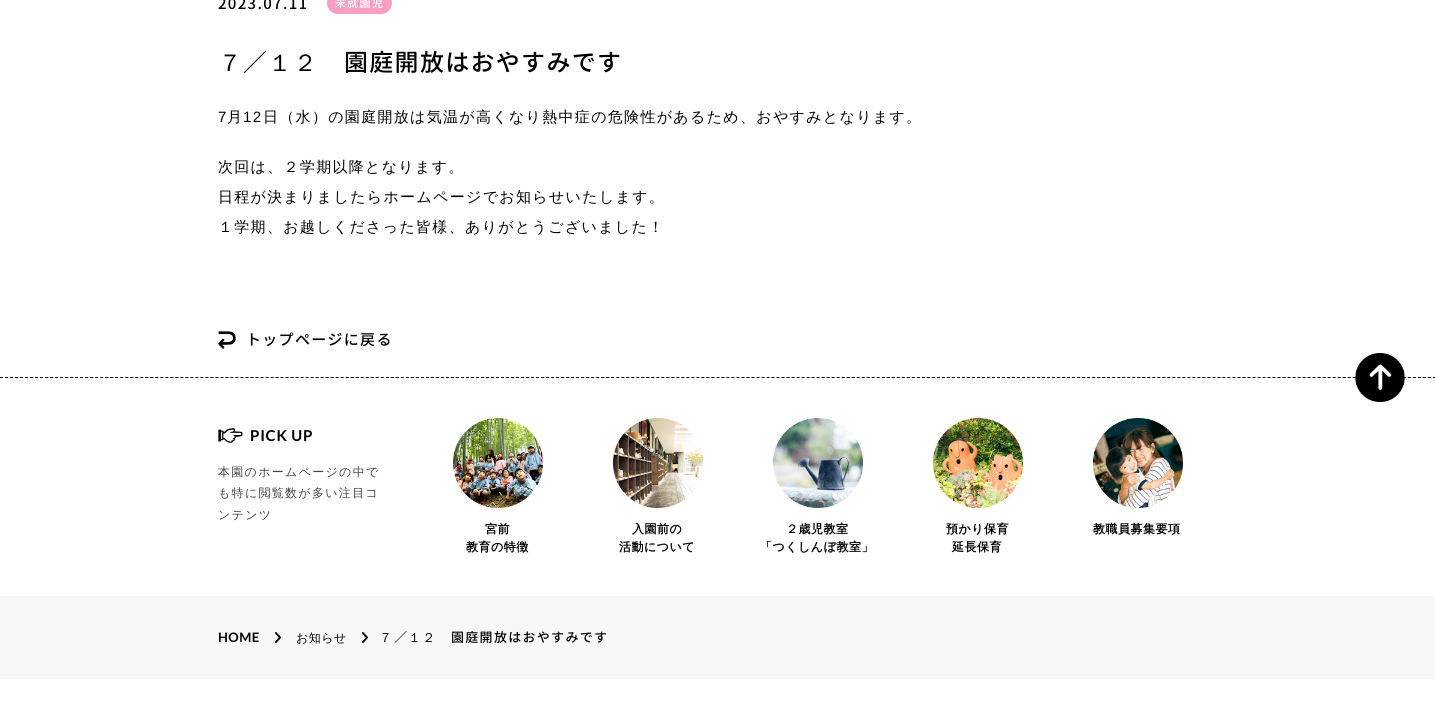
#include <cairo.h>
#include <math.h>
#include <stddef.h>

static cairo_t *c;
static void C(unsigned color){cairo_set_source_rgb(c, (color >> 16) / 255.0, (color >> 8 & 255) / 255.0, (color & 255) / 255.0);}
static void F(const char *family, double size, int italic, int bold){cairo_select_font_face(c, family, italic ? CAIRO_FONT_SLANT_ITALIC : CAIRO_FONT_SLANT_NORMAL,bold ? CAIRO_FONT_WEIGHT_BOLD : CAIRO_FONT_WEIGHT_NORMAL);cairo_set_font_size(c, size);}
static void L(double x, double y, const char *s, double letter, double word){cairo_move_to(c, x, y);while (*s) {char ch[5] = {0};int n = 0;do ch[n++] = *s++; while ((*s & 0xC0) == 0x80);cairo_show_text(c, ch);cairo_rel_move_to(c, letter + word * (*ch == ' '), 0);}}
static void R(double x, double y, double w, double h){cairo_rectangle(c, x, y, w, h);cairo_fill(c);}
static void Q(double x, double y, double w, double h, double r){cairo_new_sub_path(c);cairo_arc(c, x + w - r, y + h - r, r, 0, M_PI / 2);cairo_arc(c, x + r, y + h - r, r, M_PI / 2, M_PI);cairo_arc(c, x + r, y + r, r, M_PI, 1.5 * M_PI);cairo_arc(c, x + w - r, y + r, r, 1.5 * M_PI, 2 * M_PI);cairo_close_path(c);}
static void I(const char *path, double x, double y, double w, double h){cairo_surface_t *image = cairo_image_surface_create_from_png(path);cairo_save(c);cairo_set_source_surface(c, image, x, y);cairo_rectangle(c, x, y, w, h);cairo_fill(c);cairo_restore(c);cairo_surface_destroy(image);}
int main(void) {
cairo_surface_t *surface = cairo_image_surface_create(CAIRO_FORMAT_RGB24, 1435, 726);
c = cairo_create(surface);
cairo_font_options_t *options = cairo_font_options_create();
cairo_font_options_set_hint_metrics(options, CAIRO_HINT_METRICS_OFF);
cairo_font_options_set_hint_style(options, CAIRO_HINT_STYLE_NONE);
cairo_set_font_options(c, options);
cairo_set_miter_limit(c, 4);
C(0xffffff);
cairo_paint(c);
F("Noto Sans CJK JP Medium",15,0,0);
C(0x000000);
L(218,9,"2023.07.11",1.3,0);
C(0xf89ec1);
Q(327,-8,65,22,11);
cairo_fill(c);
F("Noto Sans CJK JP Medium",11,0,0);
C(0xffffff);
L(335,7,"未就園児",1.3,0);
F("WenQuanYi Zen Hei Medium",24,0,0);
C(0x000000);
L(218,71,"７",1.3,0);
F("Noto Sans CJK JP Medium",24,0,0);
L(243,71,"／",1.3,0);
F("WenQuanYi Zen Hei Medium",24,0,0);
L(268,71,"１２",1.3,0);
F("Noto Sans CJK JP Medium",24,0,0);
L(344,71,"園庭開放はおやすみです",1.3,0);
F("Liberation Sans",15,0,0);
L(218,122,"7",1.3,0);
F("WenQuanYi Zen Hei Medium",15,0,0);
L(227,122,"月",1.3,0);
F("Liberation Sans",15,0,0);
L(243,122,"12",1.3,0);
F("WenQuanYi Zen Hei Medium",15,0,0);
L(263,122,"日（水）の園庭開放は気温が高くなり熱中症の危険性があるため、おやすみとなります。",1.3,0);
L(218,172,"次回は、２学期以降となります。",1.3,0);
L(218,202,"日程が決まりましたらホームページでお知らせいたします。",1.3,0);
L(218,232,"１学期、お越しくださった皆様、ありがとうございました！",1.3,0);
I("1.png",218,331,18,18);
F("Noto Sans CJK JP Medium",15,0,0);
L(246,345,"トップページに戻る",1.3,0);
cairo_new_path(c);
cairo_move_to(c,0,377.5);
cairo_line_to(c,1435,377.5);
cairo_set_line_width(c,1);
cairo_set_dash(c,(double[]){3,2.01},2,0);
cairo_stroke(c);
I("2.png",1355,353,50,49);
I("3.png",218,428,25,15);
F("Lato",15,0,1);
L(250,441,"PICK UP",.75,0);
F("WenQuanYi Zen Hei Medium",12,0,0);
C(0x444444);
L(218,476,"本園のホームページの中で",1.3,0);
L(218,497,"も特に閲覧数が多い注目コ",1.3,0);
L(218,519,"ンテンツ",1.3,0);
I("4.png",453,418,90,90);
F("WenQuanYi Zen Hei",12,0,1);
C(0x000000);
L(485,533,"宮前",.5,0);
L(466,551,"教育の特徴",.5,0);
I("5.png",613,418,90,90);
L(632,533,"入園前の",.5,0);
L(619,551,"活動について",.5,0);
I("6.png",773,418,90,90);
L(786,533,"２歳児教室",.5,0);
L(760,551,"「つくしんぼ教室」",.5,0);
I("7.png",933,418,90,90);
L(946,533,"預かり保育",.5,0);
L(952,551,"延長保育",.5,0);
I("8.png",1093,418,90,90);
L(1093,533,"教職員募集要項",.5,0);
C(0xf7f7f7);
R(0,596,1435,83);
I("9.png",275,632,6,11);
F("Lato",13,0,1);
C(0x000000);
L(218,642,"HOME",.5,0);
I("9.png",362,632,6,11);
F("WenQuanYi Zen Hei Medium",12,0,0);
L(296,642,"お知らせ",.5,0);
F("WenQuanYi Zen Hei Medium",13,0,0);
L(379,642,"７",1.3,0);
F("Noto Sans CJK JP Medium",13,0,0);
L(394,642,"／",1.3,0);
F("WenQuanYi Zen Hei Medium",13,0,0);
L(408,642,"１２",1.3,0);
F("Noto Sans CJK JP Medium",13,0,0);
L(451,642,"園庭開放はおやすみです",1.3,0);
cairo_surface_write_to_png(surface, "o.png");
cairo_font_options_destroy(options);
cairo_destroy(c);
cairo_surface_destroy(surface);
return 0;
}
